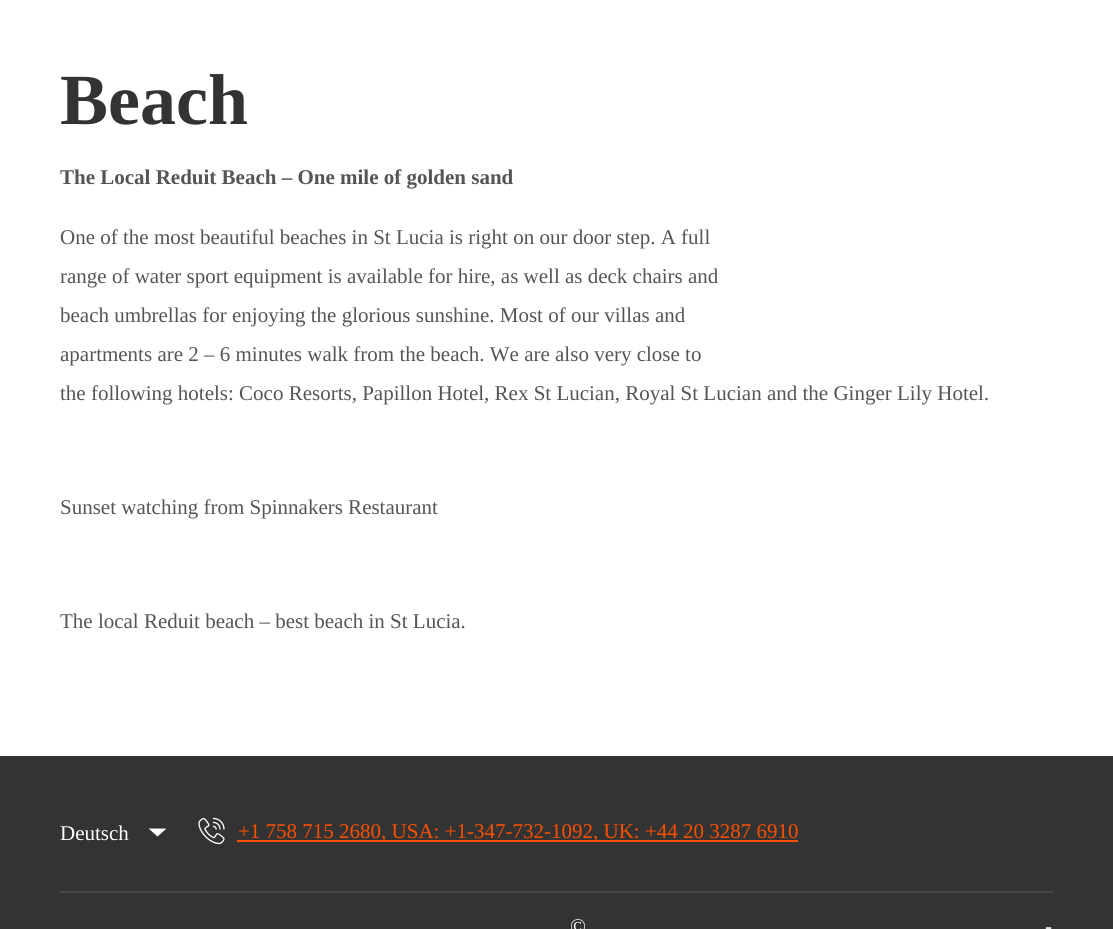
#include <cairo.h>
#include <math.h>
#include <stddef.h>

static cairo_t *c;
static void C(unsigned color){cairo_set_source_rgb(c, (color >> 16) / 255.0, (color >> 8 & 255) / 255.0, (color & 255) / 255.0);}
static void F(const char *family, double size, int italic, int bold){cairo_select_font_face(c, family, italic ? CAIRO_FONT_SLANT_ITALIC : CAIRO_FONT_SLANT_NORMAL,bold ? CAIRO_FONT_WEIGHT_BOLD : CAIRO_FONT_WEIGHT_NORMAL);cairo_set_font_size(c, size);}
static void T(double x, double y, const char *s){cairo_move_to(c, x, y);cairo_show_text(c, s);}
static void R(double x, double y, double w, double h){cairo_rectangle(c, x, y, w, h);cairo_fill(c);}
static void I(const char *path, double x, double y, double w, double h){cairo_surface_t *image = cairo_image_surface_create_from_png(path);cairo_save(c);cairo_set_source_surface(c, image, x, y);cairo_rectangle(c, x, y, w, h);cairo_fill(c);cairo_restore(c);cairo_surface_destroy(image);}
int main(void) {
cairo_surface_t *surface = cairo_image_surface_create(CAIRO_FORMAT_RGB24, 1113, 929);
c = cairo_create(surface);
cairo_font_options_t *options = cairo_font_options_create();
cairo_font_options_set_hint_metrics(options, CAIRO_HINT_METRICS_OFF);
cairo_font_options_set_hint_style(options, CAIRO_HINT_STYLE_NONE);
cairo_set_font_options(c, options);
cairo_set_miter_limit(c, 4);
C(0xffffff);
cairo_paint(c);
F("Liberation Serif",72,0,1);
C(0x333333);
T(60,124,"Beach");
F("Liberation Serif",21,0,1);
C(0x555555);
T(60,184,"The Local Reduit Beach – One mile of golden sand");
F("Liberation Serif",21,0,0);
T(60,244,"One of the most beautiful beaches in St Lucia is right on our door step. A full");
T(60,283,"range of water sport equipment is available for hire, as well as deck chairs and");
T(60,322,"beach umbrellas for enjoying the glorious sunshine. Most of our villas and");
T(60,361,"apartments are 2 – 6 minutes walk from the beach. We are also very close to");
T(60,400,"the following hotels: Coco Resorts, Papillon Hotel, Rex St Lucian, Royal St Lucian and the Ginger Lily Hotel.");
T(60,514,"Sunset watching from Spinnakers Restaurant");
T(60,628,"The local Reduit beach – best beach in St Lucia.");
C(0x333333);
R(0,756,1113,173);
C(0x474747);
R(60,892,993,1);
C(0xffffff);
T(60,840,"Deutsch");
cairo_new_path(c);
cairo_move_to(c,166.5,828.5);
cairo_line_to(c,157.5,836.5);
cairo_line_to(c,148.5,828.5);
cairo_close_path(c);
cairo_fill(c);
I("1.png",198,817,27,28);
C(0xfa4f00);
R(237,840,561,2);
T(238,838,"+1 758 715 2680, USA: +1-347-732-1092, UK: +44 20 3287 6910");
C(0x303131);
R(60,890,993,1);
C(0x454646);
R(60,891,993,1);
C(0xffffff);
T(570,933,"©");
T(1045,933,"-");
cairo_surface_write_to_png(surface, "o.png");
cairo_font_options_destroy(options);
cairo_destroy(c);
cairo_surface_destroy(surface);
return 0;
}
